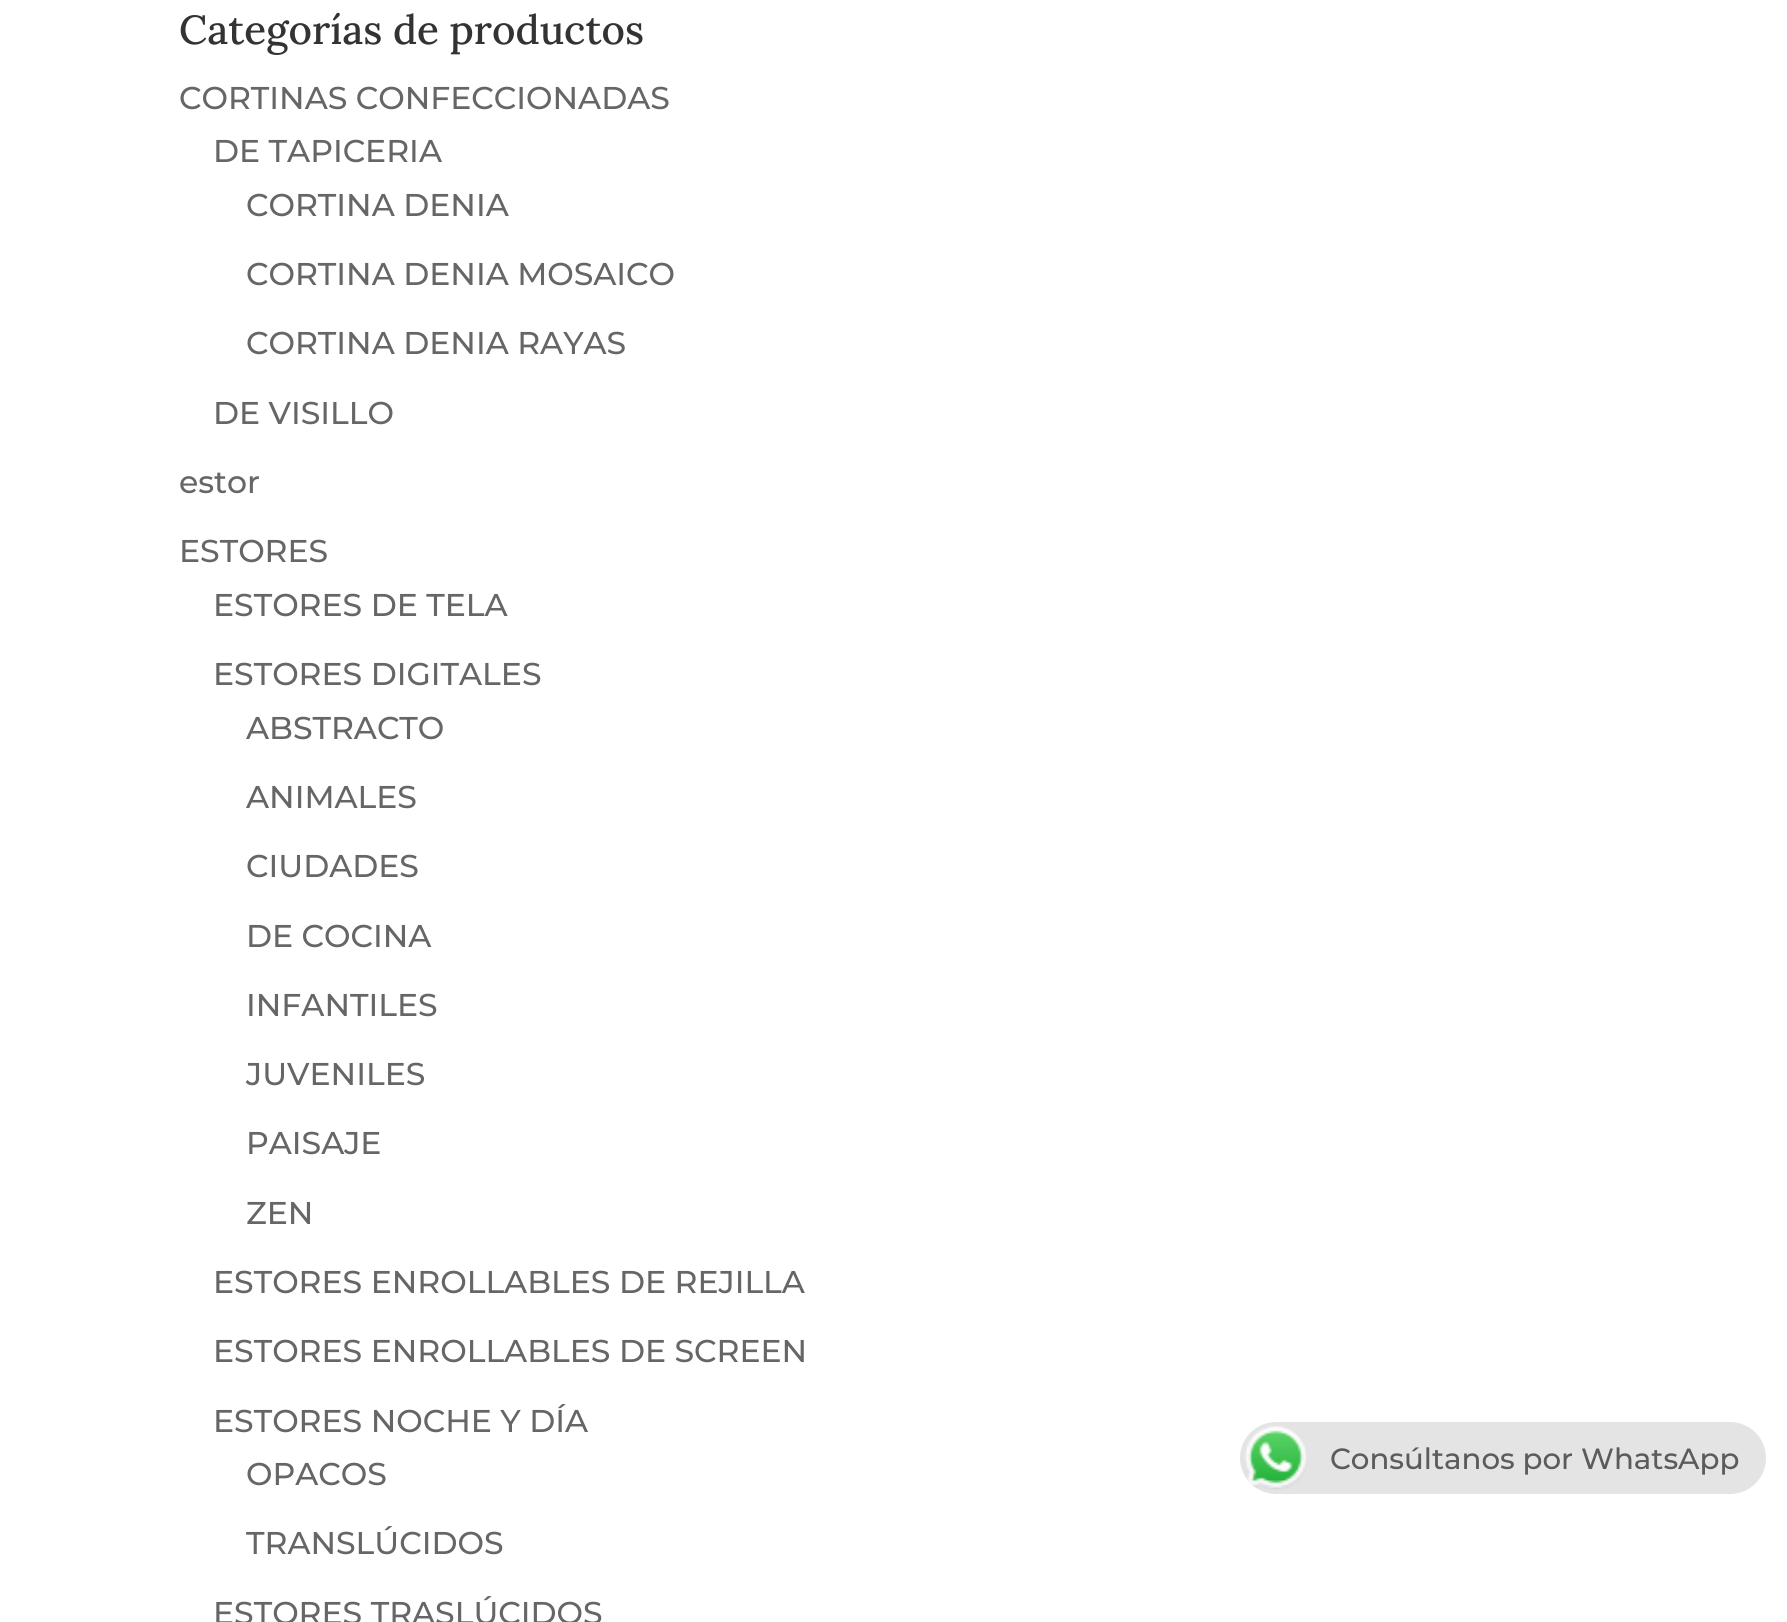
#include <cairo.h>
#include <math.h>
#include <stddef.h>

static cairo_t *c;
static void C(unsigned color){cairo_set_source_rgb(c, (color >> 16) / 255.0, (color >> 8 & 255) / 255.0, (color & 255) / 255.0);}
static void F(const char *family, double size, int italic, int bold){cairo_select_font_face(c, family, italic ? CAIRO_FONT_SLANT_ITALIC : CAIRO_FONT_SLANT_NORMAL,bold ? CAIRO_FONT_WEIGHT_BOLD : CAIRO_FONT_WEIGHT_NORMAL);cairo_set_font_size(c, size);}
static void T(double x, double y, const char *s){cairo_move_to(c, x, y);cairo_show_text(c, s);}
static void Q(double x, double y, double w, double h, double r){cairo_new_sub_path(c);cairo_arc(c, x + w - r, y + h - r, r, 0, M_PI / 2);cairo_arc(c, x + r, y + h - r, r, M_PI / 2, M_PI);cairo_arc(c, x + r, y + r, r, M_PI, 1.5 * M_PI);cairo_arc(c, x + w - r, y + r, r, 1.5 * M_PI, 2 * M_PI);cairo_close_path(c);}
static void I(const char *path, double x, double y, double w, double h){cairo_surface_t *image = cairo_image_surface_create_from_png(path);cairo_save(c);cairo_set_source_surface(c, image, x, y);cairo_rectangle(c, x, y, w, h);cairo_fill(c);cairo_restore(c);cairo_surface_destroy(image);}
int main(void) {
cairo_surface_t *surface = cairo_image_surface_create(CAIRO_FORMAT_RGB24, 1787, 1622);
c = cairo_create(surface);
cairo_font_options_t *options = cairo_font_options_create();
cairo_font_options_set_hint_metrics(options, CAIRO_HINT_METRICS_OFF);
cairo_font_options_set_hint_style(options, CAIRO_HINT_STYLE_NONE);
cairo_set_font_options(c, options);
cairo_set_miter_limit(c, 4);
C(0xffffff);
cairo_paint(c);
F("Lora Medium",40.5,0,0);
C(0x333333);
T(179,44,"Categorías de productos");
F("Montserrat Medium",31.5,0,0);
C(0x666666);
T(179,109,"CORTINAS CONFECCIONADAS");
T(213,162,"DE TAPICERIA");
T(246,216,"CORTINA DENIA");
T(246,285,"CORTINA DENIA MOSAICO");
T(246,354,"CORTINA DENIA RAYAS");
T(213,424,"DE VISILLO");
T(179,493,"estor");
T(179,562,"ESTORES");
T(213,616,"ESTORES DE TELA");
T(213,685,"ESTORES DIGITALES");
T(246,739,"ABSTRACTO");
T(246,808,"ANIMALES");
T(246,877,"CIUDADES");
T(246,947,"DE COCINA");
T(246,1016,"INFANTILES");
T(246,1085,"JUVENILES");
T(246,1154,"PAISAJE");
T(246,1224,"ZEN");
T(213,1293,"ESTORES ENROLLABLES DE REJILLA");
T(213,1362,"ESTORES ENROLLABLES DE SCREEN");
T(213,1432,"ESTORES NOCHE Y DÍA");
T(246,1485,"OPACOS");
T(246,1554,"TRANSLÚCIDOS");
T(213,1624,"ESTORES TRASLÚCIDOS");
C(0xe4e4e4);
Q(1240,1422,526,72,36);
cairo_fill(c);
I("1.png",1244,1426,63,64);
F("Montserrat Medium",29.25,0,0);
C(0x5b5b5b);
T(1330,1469,"Consúltanos por WhatsApp");
cairo_surface_write_to_png(surface, "o.png");
cairo_font_options_destroy(options);
cairo_destroy(c);
cairo_surface_destroy(surface);
return 0;
}
